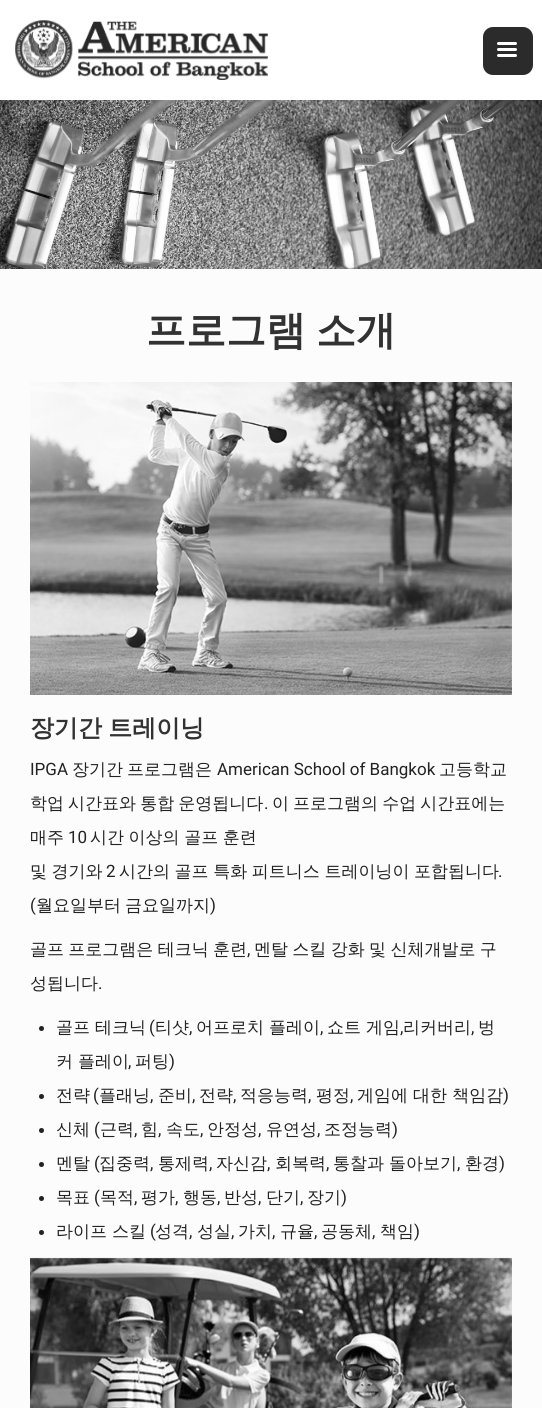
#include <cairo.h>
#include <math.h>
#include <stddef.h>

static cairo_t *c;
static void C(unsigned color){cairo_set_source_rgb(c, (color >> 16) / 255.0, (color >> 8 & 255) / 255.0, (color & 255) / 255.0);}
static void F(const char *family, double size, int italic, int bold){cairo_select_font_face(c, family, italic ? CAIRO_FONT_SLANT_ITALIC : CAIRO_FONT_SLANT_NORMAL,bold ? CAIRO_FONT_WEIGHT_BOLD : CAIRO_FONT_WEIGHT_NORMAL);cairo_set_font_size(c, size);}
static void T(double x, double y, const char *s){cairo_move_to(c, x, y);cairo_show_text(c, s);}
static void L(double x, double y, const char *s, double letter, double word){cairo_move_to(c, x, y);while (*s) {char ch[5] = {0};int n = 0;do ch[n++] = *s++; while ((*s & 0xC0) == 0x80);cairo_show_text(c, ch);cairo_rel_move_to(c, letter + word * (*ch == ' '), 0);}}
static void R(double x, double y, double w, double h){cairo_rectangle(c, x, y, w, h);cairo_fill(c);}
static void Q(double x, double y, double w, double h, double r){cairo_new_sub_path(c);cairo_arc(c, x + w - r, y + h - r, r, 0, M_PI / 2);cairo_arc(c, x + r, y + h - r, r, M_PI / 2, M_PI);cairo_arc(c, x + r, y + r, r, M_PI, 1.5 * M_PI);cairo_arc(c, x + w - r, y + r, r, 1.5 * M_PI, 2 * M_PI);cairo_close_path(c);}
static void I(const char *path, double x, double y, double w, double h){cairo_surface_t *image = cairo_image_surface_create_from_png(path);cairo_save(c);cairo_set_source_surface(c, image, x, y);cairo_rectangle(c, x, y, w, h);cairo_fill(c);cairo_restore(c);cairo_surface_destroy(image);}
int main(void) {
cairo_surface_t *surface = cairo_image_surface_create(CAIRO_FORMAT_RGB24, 542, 1408);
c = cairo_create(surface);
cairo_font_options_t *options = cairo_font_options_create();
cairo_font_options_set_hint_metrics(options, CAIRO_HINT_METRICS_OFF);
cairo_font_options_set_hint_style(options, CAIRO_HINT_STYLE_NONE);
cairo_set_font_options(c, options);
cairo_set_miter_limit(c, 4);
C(0xffffff);
cairo_paint(c);
I("1.png",15,20,253,60);
C(0x2b2b2b);
Q(483,27,50,48,10);
cairo_fill(c);
C(0xffffff);
Q(497,42,20,3,1.5);
cairo_fill(c);
Q(497,48,20,3,1.5);
cairo_fill(c);
Q(497,54,20,3,1.5);
cairo_fill(c);
I("2.png",0,100,542,169);
C(0xfcfcfc);
R(0,269,542,1139);
F("WenQuanYi Zen Hei",40,0,1);
C(0x323232);
L(146,344,"프로그램 소개",0,-2);
I("3.png",30,382,482,313);
F("WenQuanYi Zen Hei",24,0,1);
L(30,736,"장기간 트레이닝",0,-1);
F("Roboto",17,0,0);
C(0x222222);
T(30,775,"IPGA");
F("WenQuanYi Zen Hei Medium",17,0,0);
T(72,775,"장기간");
T(127,775,"프로그램은");
F("Roboto",17,0,0);
T(217,775,"American School of Bangkok");
F("WenQuanYi Zen Hei Medium",17,0,0);
T(439,775,"고등학교");
L(30,809,"학업 시간표와 통합 운영됩니다",0,-1);
F("Roboto",17,0,0);
T(264,809,".");
F("WenQuanYi Zen Hei Medium",17,0,0);
L(272,809,"이 프로그램의 수업 시간표에는",0,-1);
T(30,843,"매주");
F("Roboto",17,0,0);
T(68,843,"10");
F("WenQuanYi Zen Hei Medium",17,0,0);
L(90,843,"시간 이상의 골프 훈련",0,-.5);
L(30,877,"및 경기와",0,-.5);
F("Roboto",17,0,0);
T(106,877,"2");
F("WenQuanYi Zen Hei Medium",17,0,0);
L(119,877,"시간의 골프 특화 피트니스 트레이닝이 포합됩니다",0,-.5);
F("Roboto",17,0,0);
T(498,877,".");
T(30,911,"(");
F("WenQuanYi Zen Hei Medium",17,0,0);
L(36,911,"월요일부터 금요일까지",0,-1);
F("Roboto",17,0,0);
T(210,911,")");
F("WenQuanYi Zen Hei Medium",17,0,0);
L(30,955,"골프 프로그램은 테크닉 훈련",0,-.75);
F("Roboto",17,0,0);
T(247,955,",");
F("WenQuanYi Zen Hei Medium",17,0,0);
L(254,955,"멘탈 스킬 강화 및 신체개발로 구",0,-.75);
T(30,989,"성됩니다");
F("Roboto",17,0,0);
T(98,989,".");
cairo_new_path(c);
cairo_arc(c,41.5,1028.5,2.5,0,2 * M_PI);
cairo_fill(c);
F("WenQuanYi Zen Hei Medium",17,0,0);
T(56,1033,"골프 테크닉");
F("Roboto",17,0,0);
T(149,1033,"(");
F("WenQuanYi Zen Hei Medium",17,0,0);
T(155,1033,"티샷");
T(196,1033,"어프로치 플레이");
T(327,1033,"쇼트 게임");
T(403,1033,"리커버리");
T(478,1033,"벙");
F("Roboto",17,0,0);
T(189,1033,",");
T(320,1033,",");
T(400,1033,",");
T(471,1033,",");
F("WenQuanYi Zen Hei Medium",17,0,0);
T(56,1067,"커 플레이");
F("Roboto",17,0,0);
T(128,1067,",");
F("WenQuanYi Zen Hei Medium",17,0,0);
T(135,1067,"퍼팅");
F("Roboto",17,0,0);
T(169,1067,")");
cairo_new_path(c);
cairo_arc(c,41.5,1096.5,2.5,0,2 * M_PI);
cairo_fill(c);
F("WenQuanYi Zen Hei Medium",17,0,0);
T(56,1101,"전략");
F("Roboto",17,0,0);
T(93,1101,"(");
F("WenQuanYi Zen Hei Medium",17,0,0);
T(99,1101,"플래닝");
T(158,1101,"준비");
T(199,1101,"전략");
T(240,1101,"적응능력");
T(316,1101,"평정");
T(357,1101,"게임에 대한 책임감");
F("Roboto",17,0,0);
T(503,1101,")");
T(150,1101,",");
T(192,1101,",");
T(233,1101,",");
T(308,1101,",");
T(350,1101,",");
cairo_new_path(c);
cairo_arc(c,41.5,1130.5,2.5,0,2 * M_PI);
cairo_fill(c);
F("WenQuanYi Zen Hei Medium",17,0,0);
T(56,1135,"신체");
F("Roboto",17,0,0);
T(94,1135,"(");
F("WenQuanYi Zen Hei Medium",17,0,0);
T(100,1135,"근력");
T(141,1135,"힘");
T(166,1135,"속도");
T(207,1135,"안정성");
T(266,1135,"유연성");
T(324,1135,"조정능력");
F("Roboto",17,0,0);
T(392,1135,")");
T(134,1135,",");
T(158,1135,",");
T(200,1135,",");
T(258,1135,",");
T(317,1135,",");
cairo_new_path(c);
cairo_arc(c,41.5,1164.5,2.5,0,2 * M_PI);
cairo_fill(c);
F("WenQuanYi Zen Hei Medium",17,0,0);
T(56,1169,"멘탈");
F("Roboto",17,0,0);
T(94,1169,"(");
F("WenQuanYi Zen Hei Medium",17,0,0);
T(99,1169,"집중력");
T(158,1169,"통제력");
T(216,1169,"자신감");
T(275,1169,"회복력");
T(333,1169,"통찰과 돌아보기");
T(465,1169,"환경");
F("Roboto",17,0,0);
T(499,1169,")");
T(150,1169,",");
T(209,1169,",");
T(267,1169,",");
T(326,1169,",");
T(457,1169,",");
cairo_new_path(c);
cairo_arc(c,41.5,1198.5,2.5,0,2 * M_PI);
cairo_fill(c);
F("WenQuanYi Zen Hei Medium",17,0,0);
T(56,1203,"목표");
F("Roboto",17,0,0);
T(94,1203,"(");
F("WenQuanYi Zen Hei Medium",17,0,0);
T(100,1203,"목적");
T(141,1203,"평가");
T(183,1203,"행동");
T(224,1203,"반성");
T(266,1203,"단기");
T(307,1203,"장기");
F("Roboto",17,0,0);
T(341,1203,")");
T(134,1203,",");
T(175,1203,",");
T(217,1203,",");
T(258,1203,",");
T(300,1203,",");
cairo_new_path(c);
cairo_arc(c,41.5,1232.5,2.5,0,2 * M_PI);
cairo_fill(c);
F("WenQuanYi Zen Hei Medium",17,0,0);
T(56,1237,"라이프 스킬");
F("Roboto",17,0,0);
T(150,1237,"(");
F("WenQuanYi Zen Hei Medium",17,0,0);
T(155,1237,"성격");
T(197,1237,"성실");
T(238,1237,"가치");
T(280,1237,"규율");
T(321,1237,"공동체");
T(380,1237,"책임");
F("Roboto",17,0,0);
T(414,1237,")");
T(189,1237,",");
T(231,1237,",");
T(272,1237,",");
T(314,1237,",");
T(372,1237,",");
I("4.png",30,1257,482,151);
cairo_surface_write_to_png(surface, "o.png");
cairo_font_options_destroy(options);
cairo_destroy(c);
cairo_surface_destroy(surface);
return 0;
}
